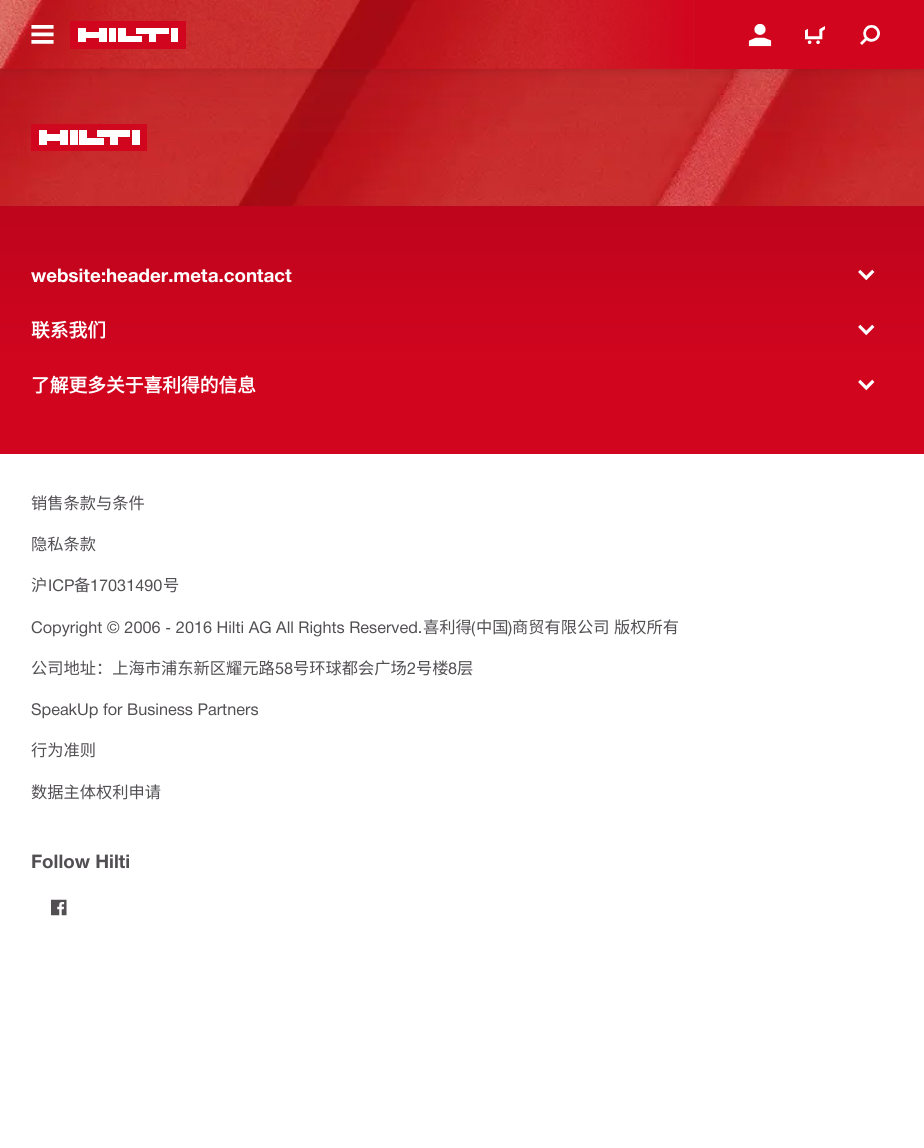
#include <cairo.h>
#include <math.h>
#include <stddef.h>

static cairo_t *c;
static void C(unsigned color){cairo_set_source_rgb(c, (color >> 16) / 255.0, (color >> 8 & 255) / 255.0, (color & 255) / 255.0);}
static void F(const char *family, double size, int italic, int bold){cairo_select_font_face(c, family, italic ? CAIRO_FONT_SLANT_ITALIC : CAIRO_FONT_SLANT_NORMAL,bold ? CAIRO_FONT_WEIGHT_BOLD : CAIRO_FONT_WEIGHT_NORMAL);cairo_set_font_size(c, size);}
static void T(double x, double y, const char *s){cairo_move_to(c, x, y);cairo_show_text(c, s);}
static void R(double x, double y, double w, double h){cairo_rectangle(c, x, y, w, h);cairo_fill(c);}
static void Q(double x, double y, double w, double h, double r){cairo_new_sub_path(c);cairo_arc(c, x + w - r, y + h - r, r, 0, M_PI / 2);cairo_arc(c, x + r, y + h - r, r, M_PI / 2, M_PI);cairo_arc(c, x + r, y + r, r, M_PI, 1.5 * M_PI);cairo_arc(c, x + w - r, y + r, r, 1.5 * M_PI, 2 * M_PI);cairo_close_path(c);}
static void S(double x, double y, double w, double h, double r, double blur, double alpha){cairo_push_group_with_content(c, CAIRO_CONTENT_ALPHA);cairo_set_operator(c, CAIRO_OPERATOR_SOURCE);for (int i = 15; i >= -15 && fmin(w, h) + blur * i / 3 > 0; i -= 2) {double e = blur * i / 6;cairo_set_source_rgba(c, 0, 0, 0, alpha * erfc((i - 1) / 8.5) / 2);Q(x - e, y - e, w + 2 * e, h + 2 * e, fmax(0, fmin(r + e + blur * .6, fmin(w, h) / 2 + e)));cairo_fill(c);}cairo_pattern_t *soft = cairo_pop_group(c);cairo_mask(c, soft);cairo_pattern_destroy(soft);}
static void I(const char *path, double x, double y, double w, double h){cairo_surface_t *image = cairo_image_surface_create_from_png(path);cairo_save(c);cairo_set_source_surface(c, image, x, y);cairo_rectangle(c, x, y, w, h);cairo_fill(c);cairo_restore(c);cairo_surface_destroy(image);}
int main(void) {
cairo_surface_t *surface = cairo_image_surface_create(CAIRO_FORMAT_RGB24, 924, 1148);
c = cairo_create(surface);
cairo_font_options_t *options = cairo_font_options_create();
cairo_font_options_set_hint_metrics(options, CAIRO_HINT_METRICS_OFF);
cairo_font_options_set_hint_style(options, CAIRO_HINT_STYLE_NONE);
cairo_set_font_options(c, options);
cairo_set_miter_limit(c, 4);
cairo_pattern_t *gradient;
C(0xffffff);
cairo_paint(c);
I("6.png",0,69,924,137);
C(0xd2051e);
R(31,124,116,27);
C(0xffffff);
cairo_new_path(c);
cairo_move_to(c,78,145);
cairo_line_to(c,70,145);
cairo_line_to(c,70,130);
cairo_line_to(c,78,130);
cairo_close_path(c);
cairo_move_to(c,140,130);
cairo_line_to(c,132,130);
cairo_line_to(c,132,145);
cairo_line_to(c,140,145);
cairo_close_path(c);
cairo_move_to(c,39,145);
cairo_line_to(c,47,145);
cairo_line_to(c,47,141);
cairo_line_to(c,60,141);
cairo_line_to(c,60,145);
cairo_line_to(c,68,145);
cairo_line_to(c,68,130);
cairo_line_to(c,60,130);
cairo_line_to(c,60,134);
cairo_line_to(c,47,134);
cairo_line_to(c,47,130);
cairo_line_to(c,39,130);
cairo_close_path(c);
cairo_move_to(c,79,145);
cairo_line_to(c,104,145);
cairo_line_to(c,104,138);
cairo_line_to(c,87,138);
cairo_line_to(c,87,130);
cairo_line_to(c,79,130);
cairo_close_path(c);
cairo_move_to(c,97,137);
cairo_line_to(c,110,137);
cairo_line_to(c,110,145);
cairo_line_to(c,118,145);
cairo_line_to(c,118,137);
cairo_line_to(c,130,137);
cairo_line_to(c,130,130);
cairo_line_to(c,97,130);
cairo_close_path(c);
cairo_fill(c);
gradient = cairo_pattern_create_linear(463,69,463,179);
cairo_pattern_add_color_stop_rgba(gradient,0,0.49,0.459,0.396,.05);
cairo_pattern_add_color_stop_rgba(gradient,1,0.49,0.459,0.396,0);
cairo_set_source(c,gradient);
cairo_pattern_destroy(gradient);
R(0,69,924,63);
C(0x000000);
S(-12,-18,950,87,0,6,.15);
C(0xd2051e);
R(0,0,924,69);
I("1.png",0,0,694,69);
I("2.png",31,25,23,19);
R(70,21,116,28);
C(0xffffff);
cairo_new_path(c);
cairo_move_to(c,116,42);
cairo_line_to(c,109,42);
cairo_line_to(c,109,28);
cairo_line_to(c,116,28);
cairo_close_path(c);
cairo_move_to(c,178,28);
cairo_line_to(c,171,28);
cairo_line_to(c,171,42);
cairo_line_to(c,178,42);
cairo_close_path(c);
cairo_move_to(c,78,42);
cairo_line_to(c,86,42);
cairo_line_to(c,86,38);
cairo_line_to(c,99,38);
cairo_line_to(c,99,42);
cairo_line_to(c,107,42);
cairo_line_to(c,107,28);
cairo_line_to(c,99,28);
cairo_line_to(c,99,32);
cairo_line_to(c,86,32);
cairo_line_to(c,86,28);
cairo_line_to(c,78,28);
cairo_close_path(c);
cairo_move_to(c,118,42);
cairo_line_to(c,142,42);
cairo_line_to(c,142,36);
cairo_line_to(c,126,36);
cairo_line_to(c,126,28);
cairo_line_to(c,118,28);
cairo_close_path(c);
cairo_move_to(c,136,34);
cairo_line_to(c,149,34);
cairo_line_to(c,149,42);
cairo_line_to(c,156,42);
cairo_line_to(c,156,34);
cairo_line_to(c,169,34);
cairo_line_to(c,169,28);
cairo_line_to(c,136,28);
cairo_close_path(c);
cairo_fill(c);
I("3.png",748,23,24,24);
I("4.png",805,26,20,18);
I("5.png",860,25,20,20);
gradient = cairo_pattern_create_linear(463,206,463,454);
cairo_pattern_add_color_stop_rgba(gradient,0,0.741,0.02,0.11,1);
cairo_pattern_add_color_stop_rgba(gradient,.67,0.824,0.02,0.118,1);
cairo_set_source(c,gradient);
cairo_pattern_destroy(gradient);
R(0,206,924,248);
F("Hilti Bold",18.75,0,1);
C(0xffffff);
T(31,282,"website:header.meta.contact");
I("7.png",858,269,17,12);
F("Noto Sans CJK SC",18.75,0,1);
T(31,337,"联系我们");
I("8.png",858,324,17,12);
T(31,392,"了解更多关于喜利得的信息");
I("9.png",858,379,17,12);
F("Noto Sans CJK SC",16.25,0,0);
C(0x524f53);
T(31,509,"销售条款与条件");
T(31,550,"隐私条款");
T(31,591,"沪");
F("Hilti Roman",16.25,0,0);
T(48,591,"ICP");
F("Noto Sans CJK SC",16.25,0,0);
T(74,591,"备");
F("Hilti Roman",16.25,0,0);
T(90,591,"17031490");
F("Noto Sans CJK SC",16.25,0,0);
T(163,591,"号");
F("Hilti Roman",16.25,0,0);
T(31,633,"Copyright © 2006 - 2016 Hilti AG All Rights Reserved.");
F("Noto Sans CJK SC",16.25,0,0);
T(423,633,"喜利得");
F("Hilti Roman",16.25,0,0);
T(471,633,"(");
F("Noto Sans CJK SC",16.25,0,0);
T(476,633,"中国");
F("Hilti Roman",16.25,0,0);
T(508,633,")");
F("Noto Sans CJK SC",16.25,0,0);
T(512,633,"商贸有限公司");
T(614,633,"版权所有");
T(31,674,"公司地址：上海市浦东新区耀元路");
F("Hilti Roman",16.25,0,0);
T(275,674,"58");
F("Noto Sans CJK SC",16.25,0,0);
T(293,674,"号环球都会广场");
F("Hilti Roman",16.25,0,0);
T(407,674,"2");
F("Noto Sans CJK SC",16.25,0,0);
T(416,674,"号楼");
F("Hilti Roman",16.25,0,0);
T(448,674,"8");
F("Noto Sans CJK SC",16.25,0,0);
T(457,674,"层");
F("Hilti Roman",16.25,0,0);
T(31,715,"SpeakUp for Business Partners");
F("Noto Sans CJK SC",16.25,0,0);
T(31,756,"行为准则");
T(31,798,"数据主体权利申请");
F("Hilti Bold",18.75,0,1);
T(31,868,"Follow Hilti");
I("10.png",50,899,17,17);
cairo_surface_write_to_png(surface, "o.png");
cairo_font_options_destroy(options);
cairo_destroy(c);
cairo_surface_destroy(surface);
return 0;
}
